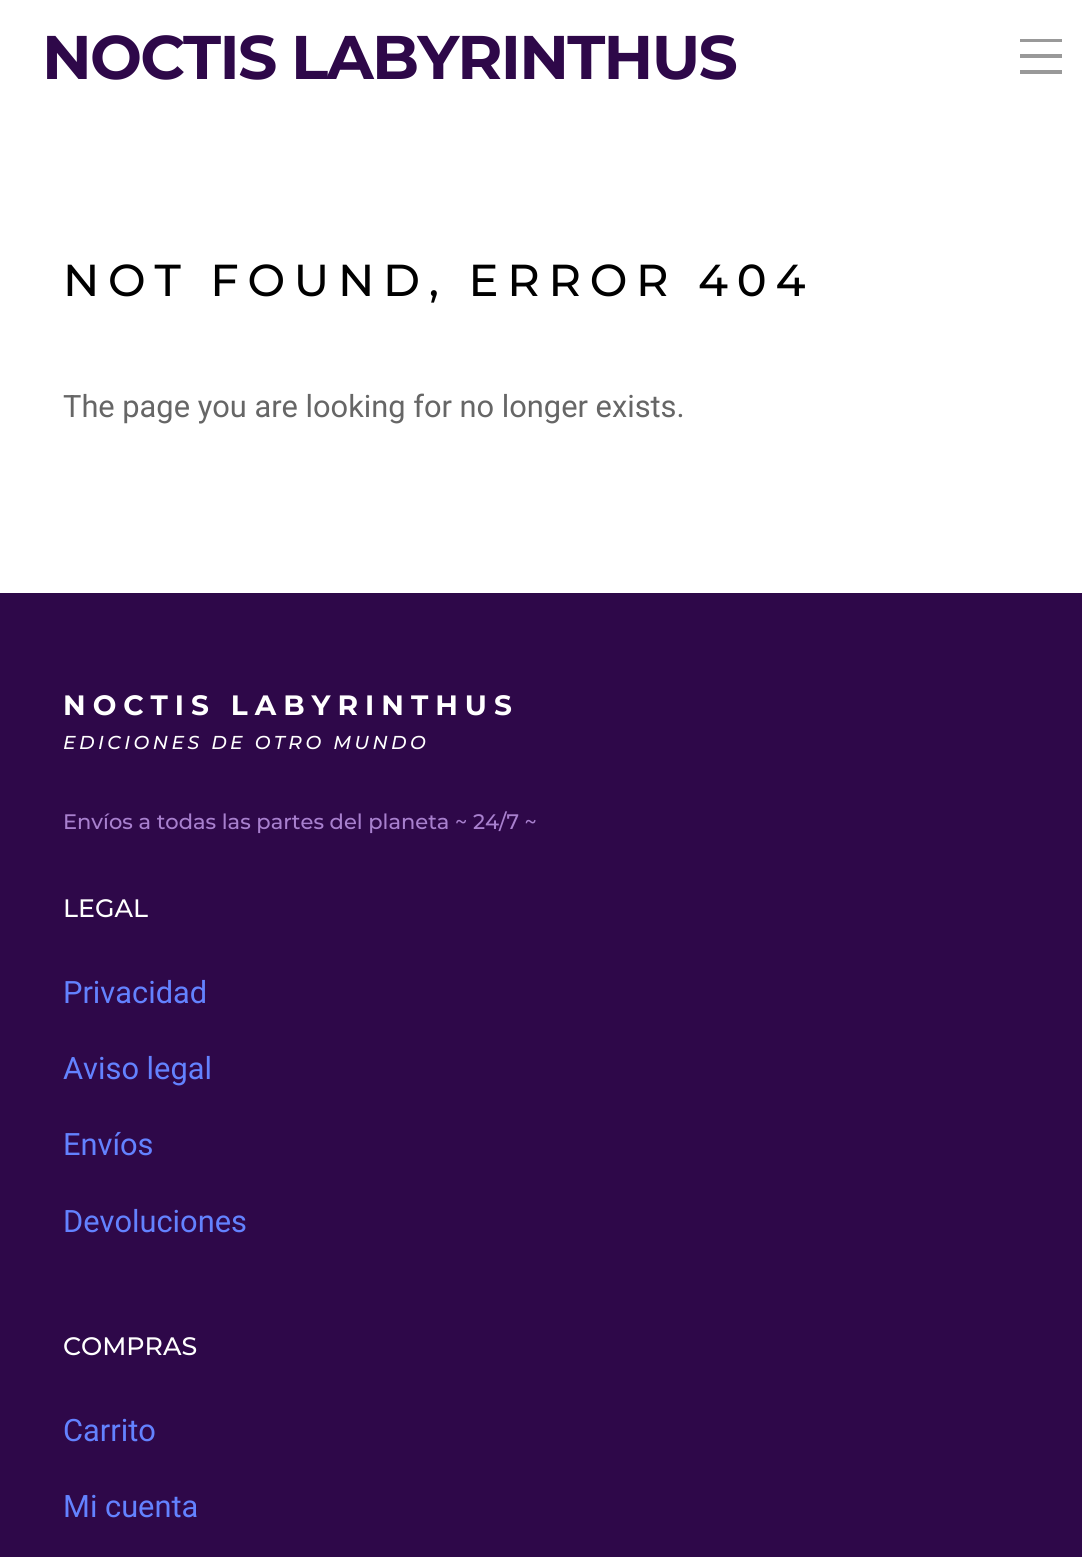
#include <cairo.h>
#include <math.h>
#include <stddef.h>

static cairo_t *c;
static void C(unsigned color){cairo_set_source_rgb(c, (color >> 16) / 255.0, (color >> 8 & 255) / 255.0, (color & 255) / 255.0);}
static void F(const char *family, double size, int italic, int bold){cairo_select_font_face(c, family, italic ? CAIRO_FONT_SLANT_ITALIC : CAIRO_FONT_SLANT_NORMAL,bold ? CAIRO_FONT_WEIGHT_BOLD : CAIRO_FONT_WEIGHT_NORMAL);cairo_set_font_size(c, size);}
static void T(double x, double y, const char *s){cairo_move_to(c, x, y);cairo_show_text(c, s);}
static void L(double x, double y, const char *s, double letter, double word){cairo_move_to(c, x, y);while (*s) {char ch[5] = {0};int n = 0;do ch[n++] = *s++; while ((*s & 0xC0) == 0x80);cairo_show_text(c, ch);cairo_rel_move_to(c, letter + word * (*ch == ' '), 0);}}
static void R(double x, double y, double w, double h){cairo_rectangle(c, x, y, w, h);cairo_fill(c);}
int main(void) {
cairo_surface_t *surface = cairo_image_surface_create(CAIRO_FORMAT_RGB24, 1082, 1557);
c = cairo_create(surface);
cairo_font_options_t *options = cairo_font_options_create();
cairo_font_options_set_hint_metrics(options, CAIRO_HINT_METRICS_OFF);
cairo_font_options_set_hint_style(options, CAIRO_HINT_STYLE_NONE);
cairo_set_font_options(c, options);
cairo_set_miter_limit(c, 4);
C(0xffffff);
cairo_paint(c);
F("Montserrat",61.6,0,1);
C(0x2e0849);
L(42,79,"NOCTIS LABYRINTHUS",-1.75,0);
C(0x999999);
R(1020,39,42,3);
R(1020,54,42,4);
R(1020,70,42,4);
F("Montserrat Medium",44.75,0,0);
C(0x000000);
L(63,296,"NOT FOUND, ERROR 404",8.75,0);
F("Roboto",30.8,0,0);
C(0x666666);
T(63,417,"The page you are looking for no longer exists.");
C(0x2e0849);
R(0,593,1082,964);
F("Montserrat",28,0,1);
C(0xffffff);
L(63,715,"NOCTIS LABYRINTHUS",7,0);
F("Montserrat Medium",18.7,1,0);
L(63,749,"EDICIONES DE OTRO MUNDO",3.5,0);
F("Montserrat Medium",21,0,0);
C(0xa880ce);
T(63,829,"Envíos a todas las partes del planeta ~ 24/7 ~");
F("Montserrat Medium",25.25,0,0);
C(0xffffff);
T(63,917,"LEGAL");
F("Roboto",30.8,0,0);
C(0x6382ff);
T(63,1003,"Privacidad");
T(63,1079,"Aviso legal");
T(63,1155,"Envíos");
T(63,1232,"Devoluciones");
F("Montserrat Medium",25.25,0,0);
C(0xffffff);
T(63,1355,"COMPRAS");
F("Roboto",30.8,0,0);
C(0x6382ff);
T(63,1441,"Carrito");
T(63,1517,"Mi cuenta");
cairo_surface_write_to_png(surface, "o.png");
cairo_font_options_destroy(options);
cairo_destroy(c);
cairo_surface_destroy(surface);
return 0;
}
